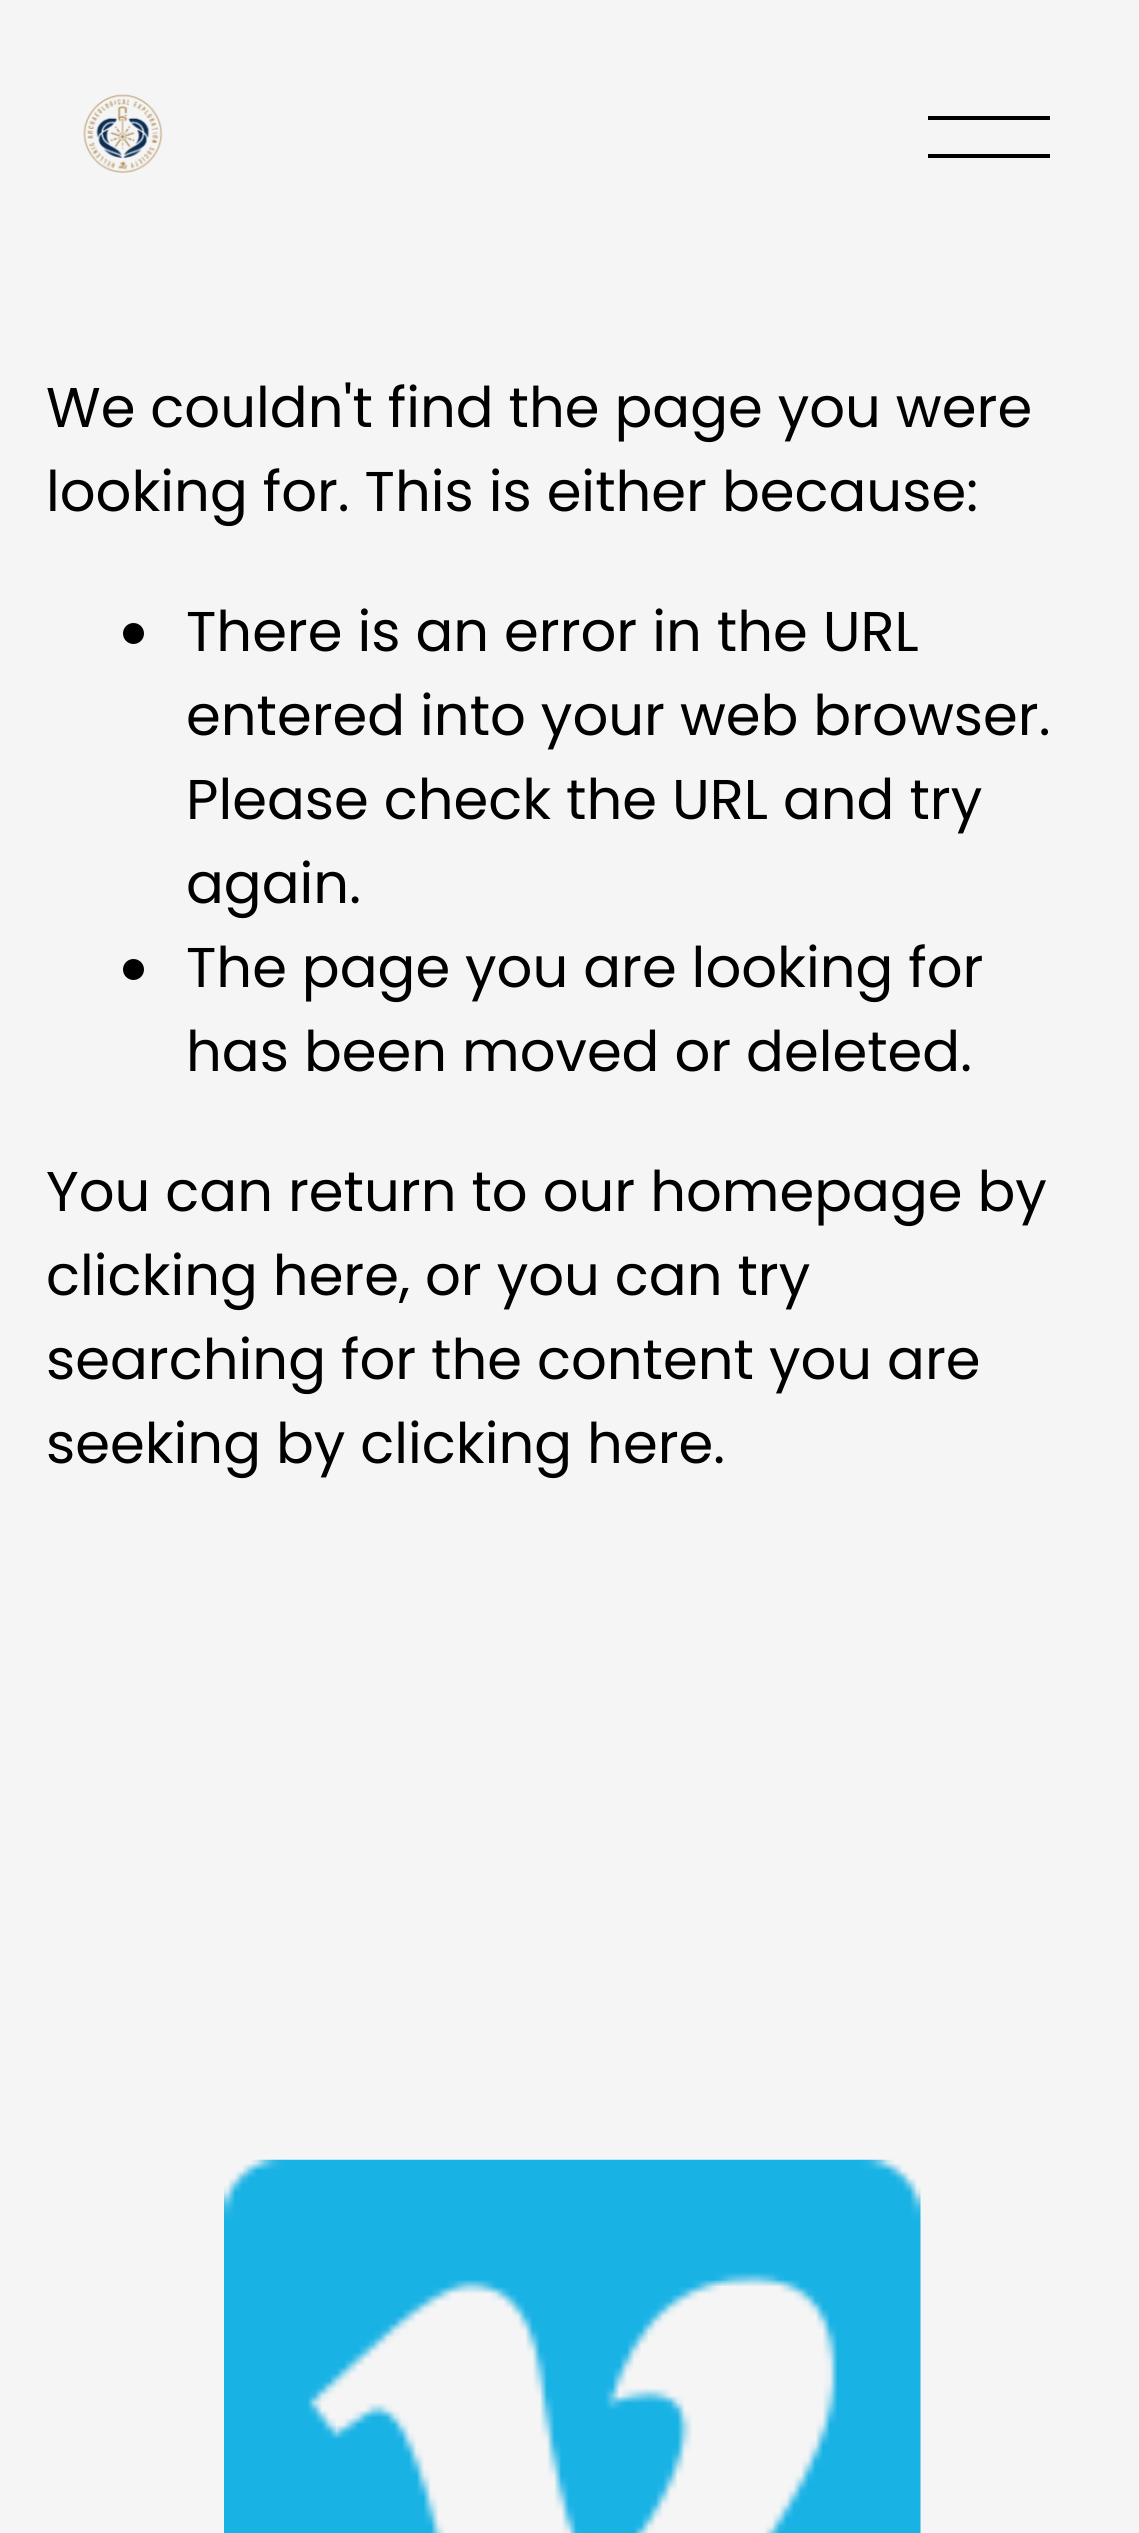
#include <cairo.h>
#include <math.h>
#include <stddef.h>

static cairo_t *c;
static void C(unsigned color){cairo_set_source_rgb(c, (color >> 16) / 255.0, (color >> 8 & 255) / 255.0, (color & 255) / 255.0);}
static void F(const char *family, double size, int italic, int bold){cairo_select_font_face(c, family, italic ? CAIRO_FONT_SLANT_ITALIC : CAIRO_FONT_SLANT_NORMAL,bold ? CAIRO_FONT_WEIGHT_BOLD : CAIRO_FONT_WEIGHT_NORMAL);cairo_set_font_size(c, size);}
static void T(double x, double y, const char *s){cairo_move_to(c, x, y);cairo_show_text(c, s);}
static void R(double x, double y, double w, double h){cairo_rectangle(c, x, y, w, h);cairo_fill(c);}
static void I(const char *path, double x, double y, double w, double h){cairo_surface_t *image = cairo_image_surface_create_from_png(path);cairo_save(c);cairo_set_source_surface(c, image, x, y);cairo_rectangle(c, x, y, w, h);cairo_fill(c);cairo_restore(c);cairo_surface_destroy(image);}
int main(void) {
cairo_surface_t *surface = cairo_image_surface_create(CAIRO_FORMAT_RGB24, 1139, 2533);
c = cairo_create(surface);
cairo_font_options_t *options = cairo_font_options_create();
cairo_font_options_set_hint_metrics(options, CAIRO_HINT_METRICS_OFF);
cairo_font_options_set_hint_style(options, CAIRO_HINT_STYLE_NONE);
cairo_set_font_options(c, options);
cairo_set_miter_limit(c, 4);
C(0xf5f5f5);
cairo_paint(c);
I("1.png",83,94,80,79);
C(0x000000);
R(928,116,122,4);
R(928,154,122,4);
F("Poppins",56,0,0);
T(46,427,"We couldn't find the page you were");
T(46,511,"looking for. This is either because:");
cairo_new_path(c);
cairo_arc(c,133.5,633.5,10.5,0,2 * M_PI);
cairo_fill(c);
T(186,651,"There is an error in the URL");
T(186,735,"entered into your web browser.");
T(186,819,"Please check the URL and try");
T(186,903,"again.");
cairo_new_path(c);
cairo_arc(c,133.5,969.5,10.5,0,2 * M_PI);
cairo_fill(c);
T(186,987,"The page you are looking for");
T(186,1071,"has been moved or deleted.");
T(46,1211,"You can return to our homepage by");
T(46,1295,"clicking here, or you can try");
T(46,1379,"searching for the content you are");
T(46,1463,"seeking by clicking here.");
I("2.png",224,2159,697,374);
cairo_surface_write_to_png(surface, "o.png");
cairo_font_options_destroy(options);
cairo_destroy(c);
cairo_surface_destroy(surface);
return 0;
}
